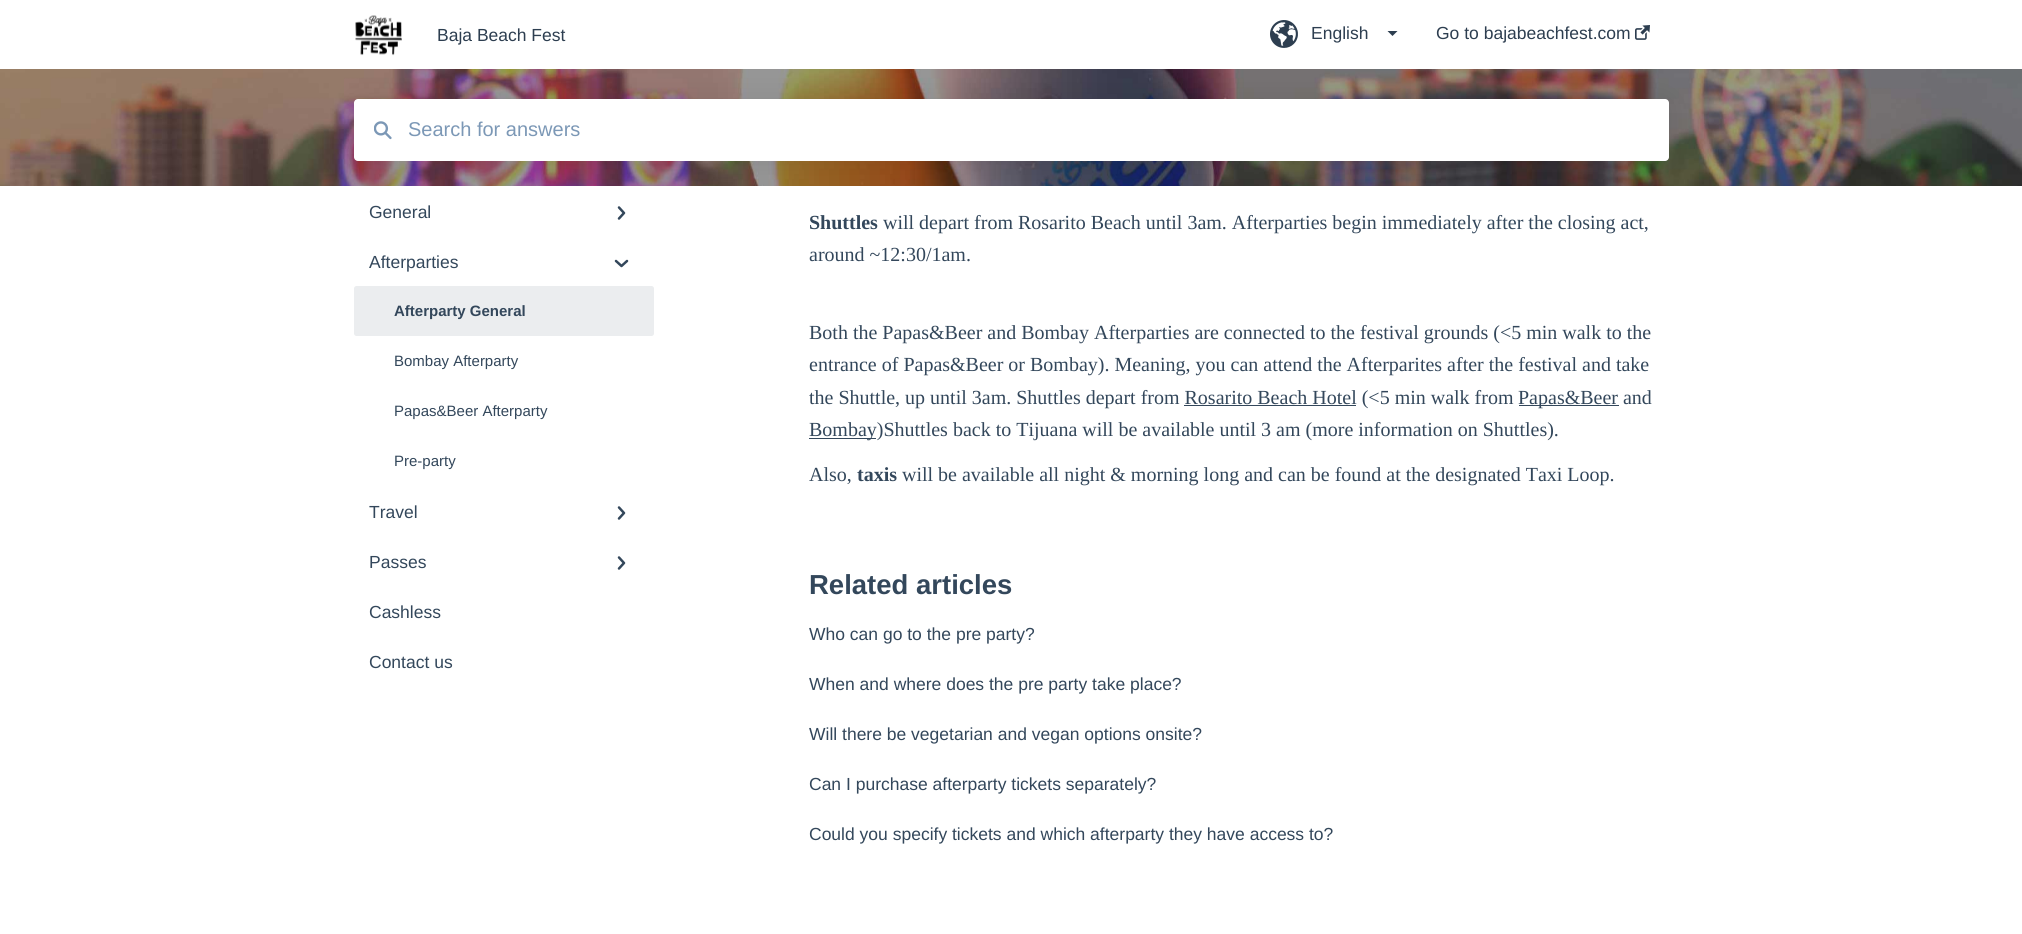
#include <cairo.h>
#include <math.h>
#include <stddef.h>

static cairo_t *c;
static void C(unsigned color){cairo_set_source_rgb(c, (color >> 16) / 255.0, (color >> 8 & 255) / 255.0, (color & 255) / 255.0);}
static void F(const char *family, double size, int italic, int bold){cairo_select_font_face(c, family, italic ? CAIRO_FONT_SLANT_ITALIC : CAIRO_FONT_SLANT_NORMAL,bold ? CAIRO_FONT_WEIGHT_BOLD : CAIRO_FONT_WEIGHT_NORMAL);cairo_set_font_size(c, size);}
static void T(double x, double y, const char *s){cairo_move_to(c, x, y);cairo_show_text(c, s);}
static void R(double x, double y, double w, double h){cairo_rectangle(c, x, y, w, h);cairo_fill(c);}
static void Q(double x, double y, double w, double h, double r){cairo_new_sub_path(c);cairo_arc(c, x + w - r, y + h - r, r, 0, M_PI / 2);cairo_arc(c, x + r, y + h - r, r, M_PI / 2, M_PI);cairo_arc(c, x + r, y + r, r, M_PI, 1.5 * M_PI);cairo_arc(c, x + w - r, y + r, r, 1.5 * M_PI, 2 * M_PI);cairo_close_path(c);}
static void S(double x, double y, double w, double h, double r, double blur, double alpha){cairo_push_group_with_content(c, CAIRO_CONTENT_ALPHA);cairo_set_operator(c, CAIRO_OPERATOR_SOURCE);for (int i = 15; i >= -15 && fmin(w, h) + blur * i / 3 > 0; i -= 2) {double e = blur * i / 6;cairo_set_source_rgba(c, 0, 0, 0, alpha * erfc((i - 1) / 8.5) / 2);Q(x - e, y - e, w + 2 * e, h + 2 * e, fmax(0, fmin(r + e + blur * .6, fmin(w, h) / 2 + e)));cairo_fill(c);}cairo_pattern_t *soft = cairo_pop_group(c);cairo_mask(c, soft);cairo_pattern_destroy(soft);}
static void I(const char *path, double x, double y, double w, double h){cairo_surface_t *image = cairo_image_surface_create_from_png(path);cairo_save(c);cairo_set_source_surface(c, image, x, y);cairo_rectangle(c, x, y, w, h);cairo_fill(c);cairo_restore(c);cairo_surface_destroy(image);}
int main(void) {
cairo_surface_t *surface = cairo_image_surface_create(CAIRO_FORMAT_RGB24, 2022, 934);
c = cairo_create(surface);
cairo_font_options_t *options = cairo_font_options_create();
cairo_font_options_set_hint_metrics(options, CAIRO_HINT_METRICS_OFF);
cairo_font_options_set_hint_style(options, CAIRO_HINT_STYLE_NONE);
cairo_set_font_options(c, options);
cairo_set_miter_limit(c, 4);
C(0xffffff);
cairo_paint(c);
I("4.png",0,69,2022,117);
cairo_new_path(c);
cairo_move_to(c,619,207.5);
cairo_line_to(c,624,213);
cairo_line_to(c,619,218.5);
C(0x33475b);
cairo_set_line_width(c,2.5);
cairo_set_line_cap(c,CAIRO_LINE_CAP_ROUND);
cairo_set_line_join(c,CAIRO_LINE_JOIN_ROUND);
cairo_stroke(c);
C(0x000000);
S(354,100,1315,63,4,15,.08);
I("1.png",355,15,47,41);
F("Liberation Sans",17.5,0,0);
C(0x2d3e50);
T(437,41,"Baja Beach Fest");
I("2.png",1270,20,28,28);
T(1311,39,"English");
cairo_new_path(c);
cairo_move_to(c,1387.5,31);
cairo_line_to(c,1397.5,31);
cairo_line_to(c,1392.5,36);
cairo_close_path(c);
cairo_fill(c);
T(1436,39,"Go to bajabeachfest.com");
I("3.png",1635,25,15,15);
C(0xffffff);
Q(354,99,1315,62,4);
cairo_fill(c);
I("5.png",374,121,18,19);
F("Liberation Sans",20,0,0);
C(0x7c98b6);
T(408,136,"Search for answers");
F("Liberation Sans",17.5,0,0);
C(0x33475b);
T(369,218,"General");
T(369,268,"Afterparties");
cairo_new_path(c);
cairo_move_to(c,627,261);
cairo_line_to(c,621.5,266);
cairo_line_to(c,616,261);
cairo_stroke(c);
C(0xebedef);
Q(354,286,300,50,2.5);
cairo_fill(c);
F("Liberation Sans",15,0,1);
C(0x33475b);
T(394,316,"Afterparty General");
F("Liberation Sans",15,0,0);
T(394,366,"Bombay Afterparty");
T(394,416,"Papas&Beer Afterparty");
T(394,466,"Pre-party");
F("Liberation Sans",17.5,0,0);
T(369,518,"Travel");
cairo_new_path(c);
cairo_move_to(c,619,507.5);
cairo_line_to(c,624,513);
cairo_line_to(c,619,518.5);
cairo_stroke(c);
T(369,568,"Passes");
cairo_new_path(c);
cairo_move_to(c,619,557.5);
cairo_line_to(c,624,563);
cairo_line_to(c,619,568.5);
cairo_stroke(c);
T(369,618,"Cashless");
T(369,668,"Contact us");
F("Liberation Serif",20,0,1);
T(809,229,"Shuttles");
F("Liberation Serif",20,0,0);
T(883,229,"will depart from Rosarito Beach until 3am. Afterparties begin immediately after the closing act,");
T(809,261,"around ~12:30/1am.");
T(809,339,"Both the Papas&Beer and Bombay Afterparties are connected to the festival grounds (<5 min walk to the");
T(809,371,"entrance of Papas&Beer or Bombay). Meaning, you can attend the Afterparites after the festival and take");
T(809,404,"the Shuttle, up until 3am. Shuttles depart from Rosarito Beach Hotel (<5 min walk from");
R(1519,405,100,1);
T(1518,404,"Papas&Beer and");
R(1184,405,172,1);
R(809,438,67,1);
T(809,436,"Bombay)Shuttles back to Tijuana will be available until 3 am (more information on Shuttles).");
T(809,481,"Also,");
F("Liberation Serif",20,0,1);
T(857,481,"taxis");
F("Liberation Serif",20,0,0);
T(902,481,"will be available all night & morning long and can be found at the designated Taxi Loop.");
F("Liberation Sans",27.5,0,1);
T(809,594,"Related articles");
F("Liberation Sans",17.5,0,0);
T(809,640,"Who can go to the pre party?");
T(809,690,"When and where does the pre party take place?");
T(809,740,"Will there be vegetarian and vegan options onsite?");
T(809,790,"Can I purchase afterparty tickets separately?");
T(809,840,"Could you specify tickets and which afterparty they have access to?");
cairo_surface_write_to_png(surface, "o.png");
cairo_font_options_destroy(options);
cairo_destroy(c);
cairo_surface_destroy(surface);
return 0;
}
